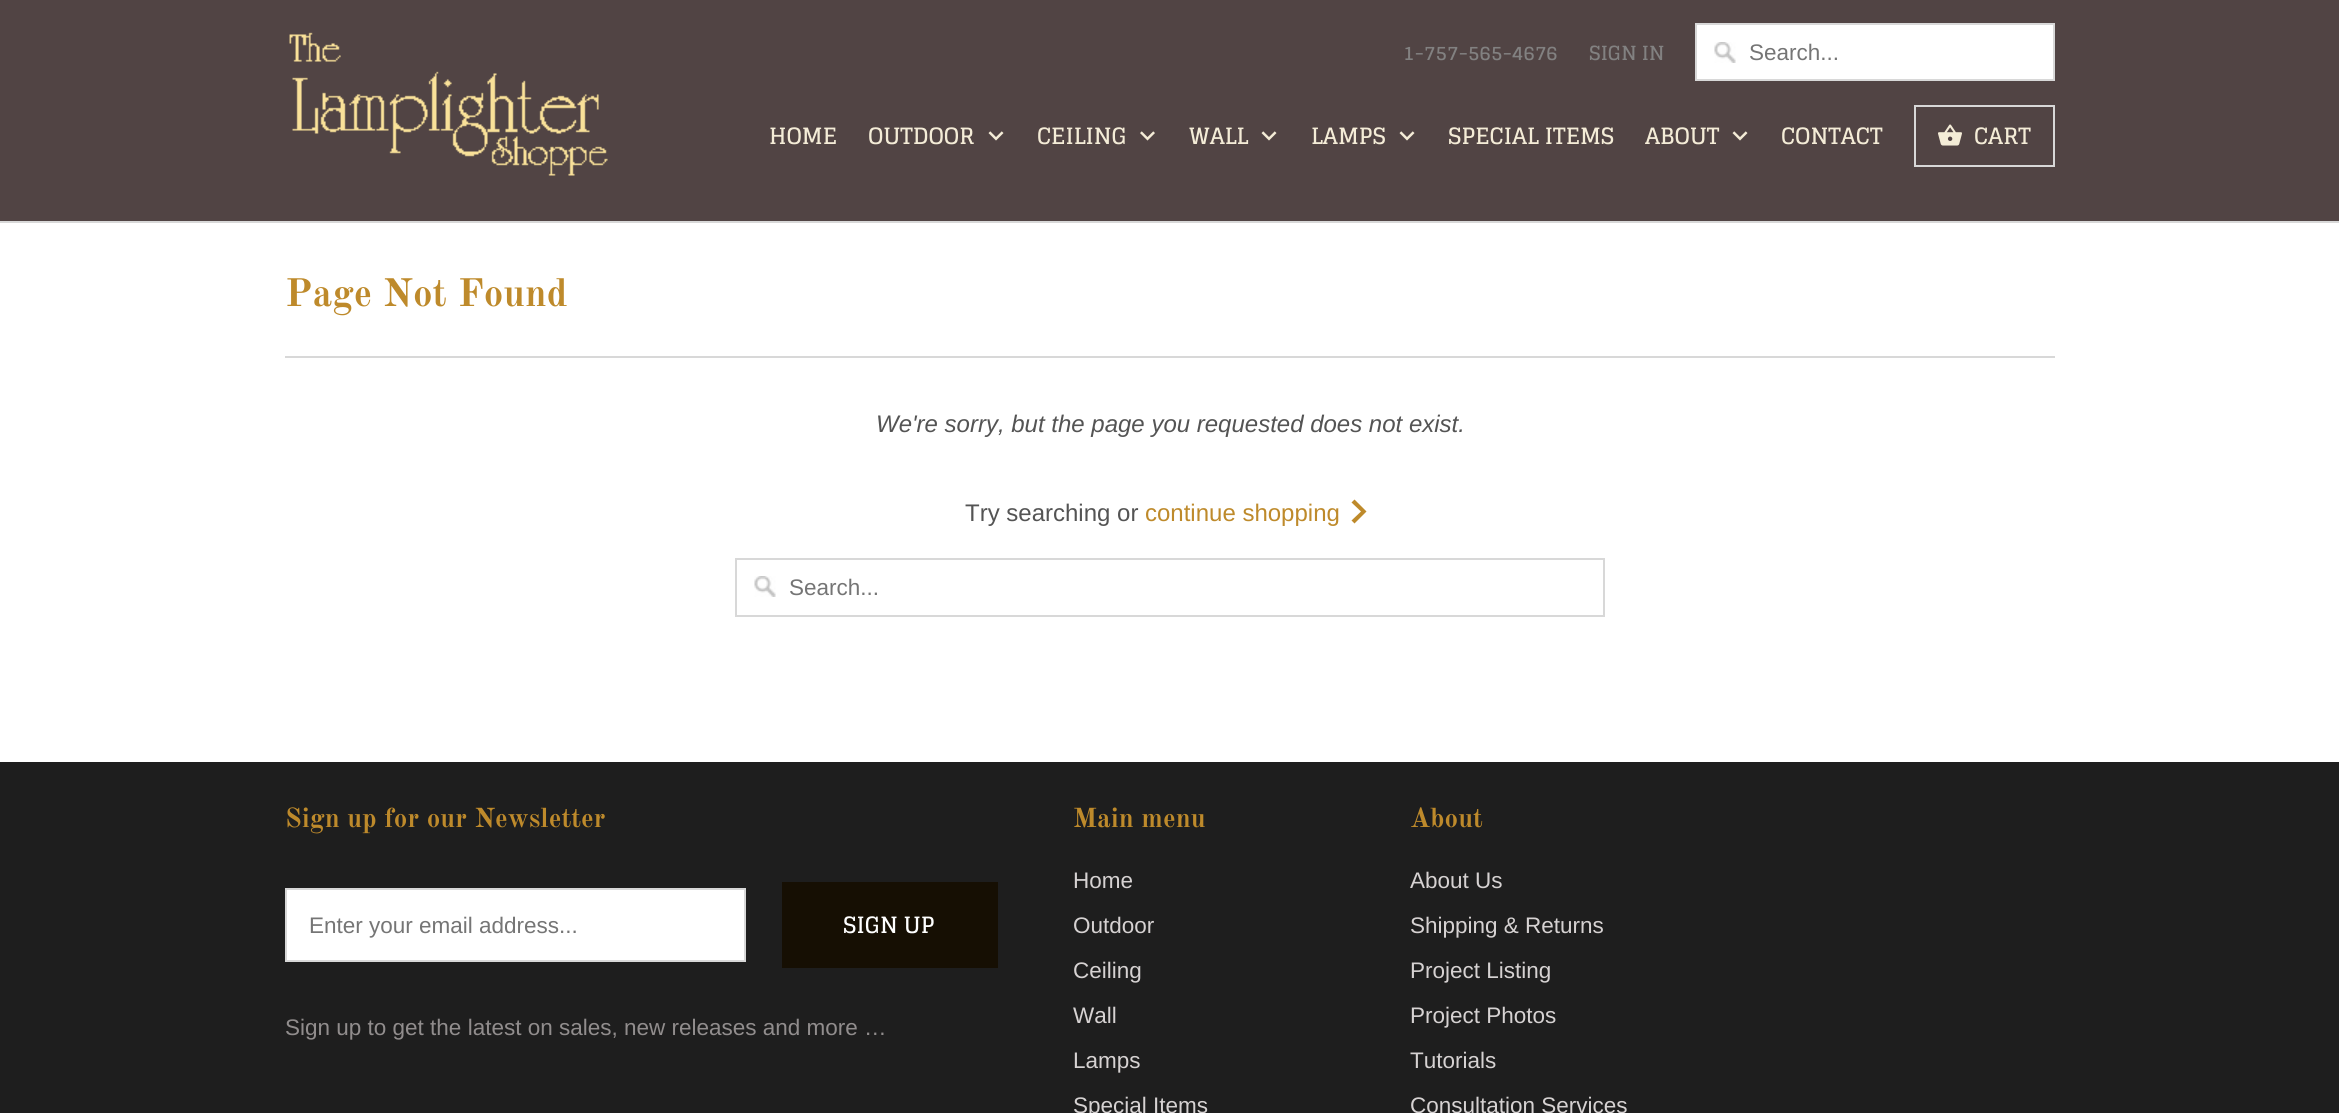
#include <cairo.h>
#include <math.h>
#include <stddef.h>

static cairo_t *c;
static void C(unsigned color){cairo_set_source_rgb(c, (color >> 16) / 255.0, (color >> 8 & 255) / 255.0, (color & 255) / 255.0);}
static void F(const char *family, double size, int italic, int bold){cairo_select_font_face(c, family, italic ? CAIRO_FONT_SLANT_ITALIC : CAIRO_FONT_SLANT_NORMAL,bold ? CAIRO_FONT_WEIGHT_BOLD : CAIRO_FONT_WEIGHT_NORMAL);cairo_set_font_size(c, size);}
static void T(double x, double y, const char *s){cairo_move_to(c, x, y);cairo_show_text(c, s);}
static void R(double x, double y, double w, double h){cairo_rectangle(c, x, y, w, h);cairo_fill(c);}
static void I(const char *path, double x, double y, double w, double h){cairo_surface_t *image = cairo_image_surface_create_from_png(path);cairo_save(c);cairo_set_source_surface(c, image, x, y);cairo_rectangle(c, x, y, w, h);cairo_fill(c);cairo_restore(c);cairo_surface_destroy(image);}
int main(void) {
cairo_surface_t *surface = cairo_image_surface_create(CAIRO_FORMAT_RGB24, 2339, 1113);
c = cairo_create(surface);
cairo_font_options_t *options = cairo_font_options_create();
cairo_font_options_set_hint_metrics(options, CAIRO_HINT_METRICS_OFF);
cairo_font_options_set_hint_style(options, CAIRO_HINT_STYLE_NONE);
cairo_set_font_options(c, options);
cairo_set_miter_limit(c, 4);
C(0xffffff);
cairo_paint(c);
C(0x514444);
R(0,0,2339,221);
C(0xd8d8d8);
R(0,221,2339,2);
I("1.png",289,32,319,144);
F("Glegoo",19.5,0,1);
C(0x828181);
T(1403,60,"1-757-565-4676");
T(1589,60,"SIGN IN");
C(0xffffff);
R(1697,25,356,54);
I("2.png",1714,42,22,21);
cairo_rectangle(c,1696,24,358,56);
C(0xd8d8d8);
cairo_stroke(c);
F("Liberation Sans",22.5,0,0);
C(0x757575);
T(1749,60,"Search...");
F("Glegoo",22.5,0,1);
C(0xf4ecd7);
T(769,144,"HOME");
T(868,144,"OUTDOOR");
I("3.png",988,131,16,10);
T(1037,144,"CEILING");
I("4.png",1140,131,15,10);
T(1189,144,"WALL");
I("3.png",1261,131,16,10);
T(1311,144,"LAMPS");
I("3.png",1399,131,16,10);
T(1448,144,"SPECIAL ITEMS");
T(1645,144,"ABOUT");
I("3.png",1732,131,16,10);
T(1781,144,"CONTACT");
cairo_rectangle(c,1915,106,139,60);
C(0xd8d8d8);
cairo_stroke(c);
I("5.png",1938,124,24,22);
C(0xf4ecd7);
T(1974,144,"CART");
C(0xd8d8d8);
R(285,356,1770,2);
F("Old Standard TT",39,0,1);
C(0xbe8a2b);
T(285,306,"Page Not Found");
F("Liberation Sans",24,1,0);
C(0x545454);
T(876,432,"We're sorry, but the page you requested does not exist.");
F("Liberation Sans",24,0,0);
T(965,521,"Try searching or");
C(0xbe8a2b);
T(1145,521,"continue shopping");
cairo_new_path(c);
cairo_move_to(c,1354.5,499.5);
cairo_line_to(c,1351.5,502.5);
cairo_line_to(c,1361,511.5);
cairo_line_to(c,1351.5,520.5);
cairo_line_to(c,1354.5,523.5);
cairo_line_to(c,1366.5,511.5);
cairo_close_path(c);
cairo_fill(c);
I("6.png",754,576,22,21);
cairo_rectangle(c,736,559,868,57);
C(0xd8d8d8);
cairo_stroke(c);
F("Liberation Sans",22.5,0,0);
C(0x757575);
T(789,595,"Search...");
C(0x1e1e1e);
R(0,762,2339,351);
F("Old Standard TT",27,0,1);
C(0xbe8a2b);
T(285,827,"Sign up for our Newsletter");
C(0xffffff);
cairo_rectangle(c,286,889,459,72);
cairo_fill_preserve(c);
C(0xd8d8d8);
cairo_stroke(c);
F("Liberation Sans",22.5,0,0);
C(0x757575);
T(309,933,"Enter your email address...");
C(0x160f03);
R(782,882,216,86);
F("Glegoo",22.5,0,1);
C(0xffffff);
T(843,933,"SIGN UP");
F("Liberation Sans",22.5,0,0);
C(0x918d8d);
T(285,1035,"Sign up to get the latest on sales, new releases and more …");
F("Old Standard TT",27,0,1);
C(0xbe8a2b);
T(1073,827,"Main menu");
F("Liberation Sans",22.5,0,0);
C(0xd6d2d2);
T(1073,888,"Home");
T(1073,933,"Outdoor");
T(1073,978,"Ceiling");
T(1073,1023,"Wall");
T(1073,1068,"Lamps");
T(1073,1113,"Special Items");
F("Old Standard TT",27,0,1);
C(0xbe8a2b);
T(1410,827,"About");
F("Liberation Sans",22.5,0,0);
C(0xd6d2d2);
T(1410,888,"About Us");
T(1410,933,"Shipping & Returns");
T(1410,978,"Project Listing");
T(1410,1023,"Project Photos");
T(1410,1068,"Tutorials");
T(1410,1113,"Consultation Services");
cairo_surface_write_to_png(surface, "o.png");
cairo_font_options_destroy(options);
cairo_destroy(c);
cairo_surface_destroy(surface);
return 0;
}
